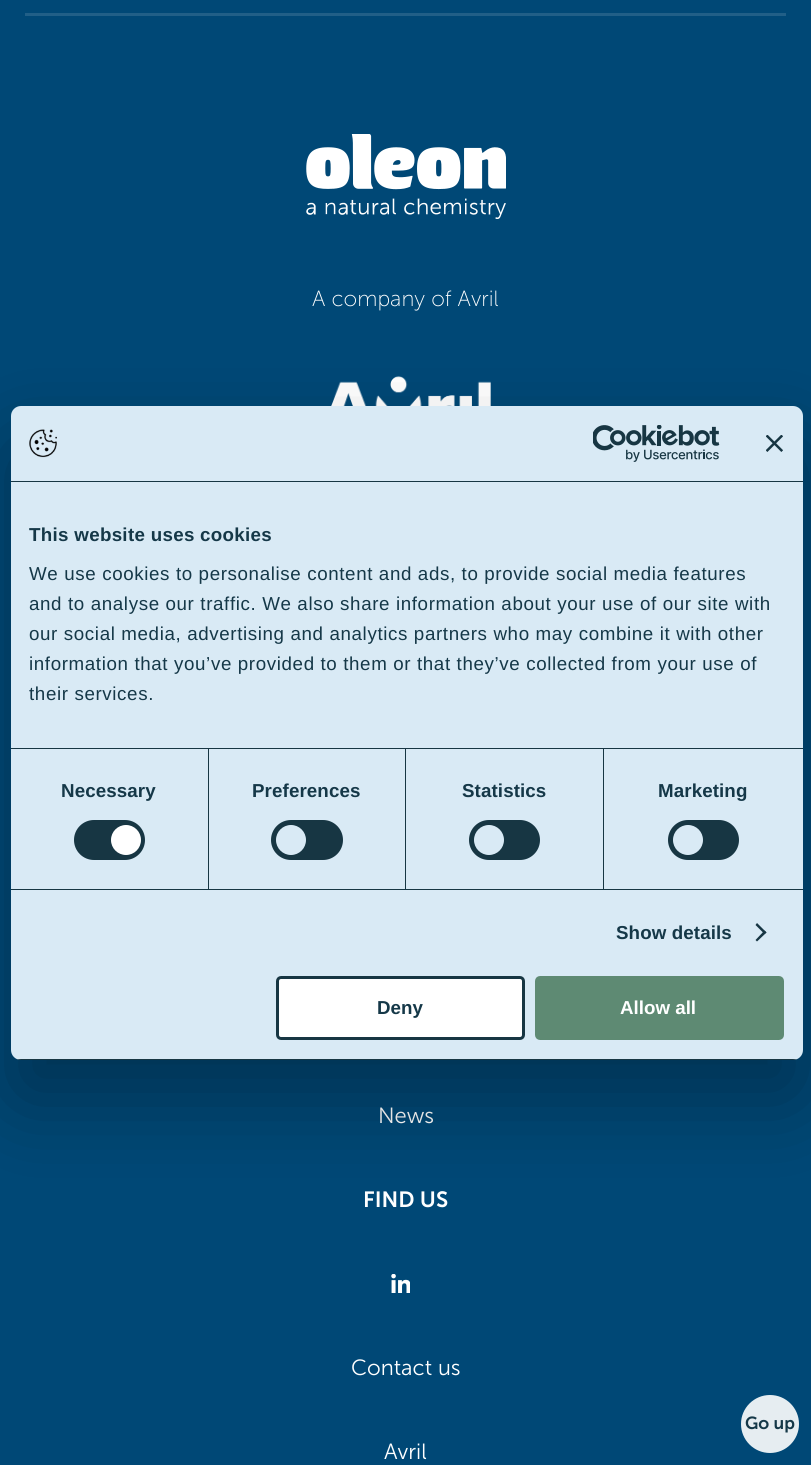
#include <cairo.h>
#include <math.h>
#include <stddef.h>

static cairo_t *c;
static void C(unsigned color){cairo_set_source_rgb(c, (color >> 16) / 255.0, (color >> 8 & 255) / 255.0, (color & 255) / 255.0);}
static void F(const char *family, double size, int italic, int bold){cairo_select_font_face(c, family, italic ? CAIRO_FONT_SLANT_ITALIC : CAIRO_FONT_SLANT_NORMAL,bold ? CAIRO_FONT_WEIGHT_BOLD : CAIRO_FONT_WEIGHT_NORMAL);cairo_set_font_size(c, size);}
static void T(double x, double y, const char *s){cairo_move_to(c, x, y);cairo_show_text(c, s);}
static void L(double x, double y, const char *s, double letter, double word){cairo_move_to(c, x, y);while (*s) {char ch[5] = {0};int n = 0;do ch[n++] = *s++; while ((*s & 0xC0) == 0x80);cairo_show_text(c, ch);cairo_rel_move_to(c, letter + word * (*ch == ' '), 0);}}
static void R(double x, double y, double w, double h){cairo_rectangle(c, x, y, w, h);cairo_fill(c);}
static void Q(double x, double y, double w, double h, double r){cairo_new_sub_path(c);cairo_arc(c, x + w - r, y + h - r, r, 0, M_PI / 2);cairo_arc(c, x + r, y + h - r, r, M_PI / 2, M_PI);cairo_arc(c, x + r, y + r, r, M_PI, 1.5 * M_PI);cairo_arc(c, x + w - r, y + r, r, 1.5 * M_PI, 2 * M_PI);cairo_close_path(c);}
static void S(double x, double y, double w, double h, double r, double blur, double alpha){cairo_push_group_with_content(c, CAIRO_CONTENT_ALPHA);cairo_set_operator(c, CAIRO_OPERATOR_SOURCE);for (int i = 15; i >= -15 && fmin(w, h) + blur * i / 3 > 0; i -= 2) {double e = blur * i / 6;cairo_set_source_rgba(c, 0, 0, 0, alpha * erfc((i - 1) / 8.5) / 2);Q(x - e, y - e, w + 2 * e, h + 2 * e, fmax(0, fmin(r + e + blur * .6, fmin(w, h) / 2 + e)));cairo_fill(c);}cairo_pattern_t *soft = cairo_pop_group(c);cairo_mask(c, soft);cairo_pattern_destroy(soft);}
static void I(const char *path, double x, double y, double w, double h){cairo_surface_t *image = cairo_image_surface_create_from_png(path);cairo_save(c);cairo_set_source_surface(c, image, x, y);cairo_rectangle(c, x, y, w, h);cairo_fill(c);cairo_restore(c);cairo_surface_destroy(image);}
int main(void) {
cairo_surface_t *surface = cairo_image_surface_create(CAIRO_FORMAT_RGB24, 811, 1465);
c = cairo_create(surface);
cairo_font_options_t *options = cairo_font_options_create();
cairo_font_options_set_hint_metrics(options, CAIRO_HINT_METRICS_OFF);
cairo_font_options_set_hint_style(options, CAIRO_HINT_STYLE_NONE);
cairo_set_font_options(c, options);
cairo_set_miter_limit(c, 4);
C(0x004876);
cairo_paint(c);
C(0x215f87);
R(25,13,761,3);
I("1.png",306,134,200,85);
F("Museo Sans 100 Light",22,0,0);
C(0xffffff);
T(312,306,"A company of Avril");
I("2.png",331,376,160,30);
F("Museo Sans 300 Light",22,0,0);
T(378,1123,"News");
F("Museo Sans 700 SemiBold",22,0,0);
T(363,1207,"FIND US");
I("3.png",391,1274,19,19);
F("Museo Sans 300 Light",22,0,0);
T(351,1375,"Contact us");
T(384,1459,"Avril");
C(0x000000);
S(11,446,792,654,10,42.5,.3);
C(0xd9eaf5);
Q(11,406,792,654,10);
cairo_fill(c);
C(0x173643);
R(11,481,792,1);
I("4.png",29,429,28,29);
I("5.png",593,425,127,37);
I("6.png",766,435,17,17);
R(11,748,792,1);
F("Liberation Sans",18.75,0,1);
C(0x153848);
L(29,541,"This website uses cookies",.3,0);
F("Liberation Sans",18.75,0,0);
L(29,580,"We use cookies to personalise content and ads, to provide social media features",.62,0);
L(29,610,"and to analyse our traffic. We also share information about your use of our site with",.62,0);
L(29,640,"our social media, advertising and analytics partners who may combine it with other",.62,0);
L(29,670,"information that you’ve provided to them or that they’ve collected from your use of",.62,0);
L(29,700,"their services.",.62,0);
C(0x173643);
R(11,889,792,1);
R(208,749,1,140);
F("Liberation Sans",18.75,0,1);
C(0x153848);
L(61,797,"Necessary",.1,0);
C(0x173643);
Q(74,820,71,40,20);
cairo_fill(c);
C(0xffffff);
cairo_arc(c,126,840,15,0,2 * M_PI);
cairo_fill(c);
C(0x173643);
R(405,749,1,140);
C(0x153848);
L(252,797,"Preferences",.1,0);
C(0x173643);
Q(271,820,72,40,20);
cairo_fill(c);
C(0xd9eaf5);
cairo_arc(c,291,840,15,0,2 * M_PI);
cairo_fill(c);
C(0x173643);
R(603,749,1,140);
C(0x153848);
L(462,797,"Statistics",.1,0);
C(0x173643);
Q(469,820,71,40,20);
cairo_fill(c);
C(0xd9eaf5);
cairo_arc(c,489,840,15,0,2 * M_PI);
cairo_fill(c);
C(0x153848);
L(658,797,"Marketing",.1,0);
C(0x173643);
Q(668,820,71,40,20);
cairo_fill(c);
C(0xd9eaf5);
cairo_arc(c,688,840,15,0,2 * M_PI);
cairo_fill(c);
C(0x153848);
L(616,939,"Show details",.1,0);
C(0x173643);
cairo_new_path(c);
cairo_move_to(c,757,923);
cairo_line_to(c,766.5,932.5);
cairo_line_to(c,764.5,934);
cairo_line_to(c,755.5,925);
cairo_close_path(c);
cairo_fill(c);
cairo_new_path(c);
cairo_move_to(c,764.5,930.5);
cairo_line_to(c,766.5,932.5);
cairo_line_to(c,757,941.5);
cairo_line_to(c,755.5,940);
cairo_close_path(c);
cairo_fill(c);
cairo_save(c);
Q(11,406,792,654,10);
cairo_clip(c);
R(11,1059,792,1);
cairo_restore(c);
C(0xffffff);
Q(277.5,977.5,246,61,3.5);
cairo_fill_preserve(c);
C(0x173643);
cairo_set_line_width(c,3);
cairo_stroke(c);
C(0x153848);
T(377,1014,"Deny");
C(0x5e8a73);
Q(536.5,977.5,246,61,3.5);
cairo_fill_preserve(c);
cairo_stroke(c);
C(0xffffff);
T(620,1014,"Allow all");
C(0xe6edf1);
cairo_new_path(c);
cairo_arc(c,770,1424,29,0,2 * M_PI);
cairo_fill(c);
F("Museo Sans 700 SemiBold",17.5,0,0);
C(0x153848);
T(745,1429,"Go up");
cairo_surface_write_to_png(surface, "o.png");
cairo_font_options_destroy(options);
cairo_destroy(c);
cairo_surface_destroy(surface);
return 0;
}
